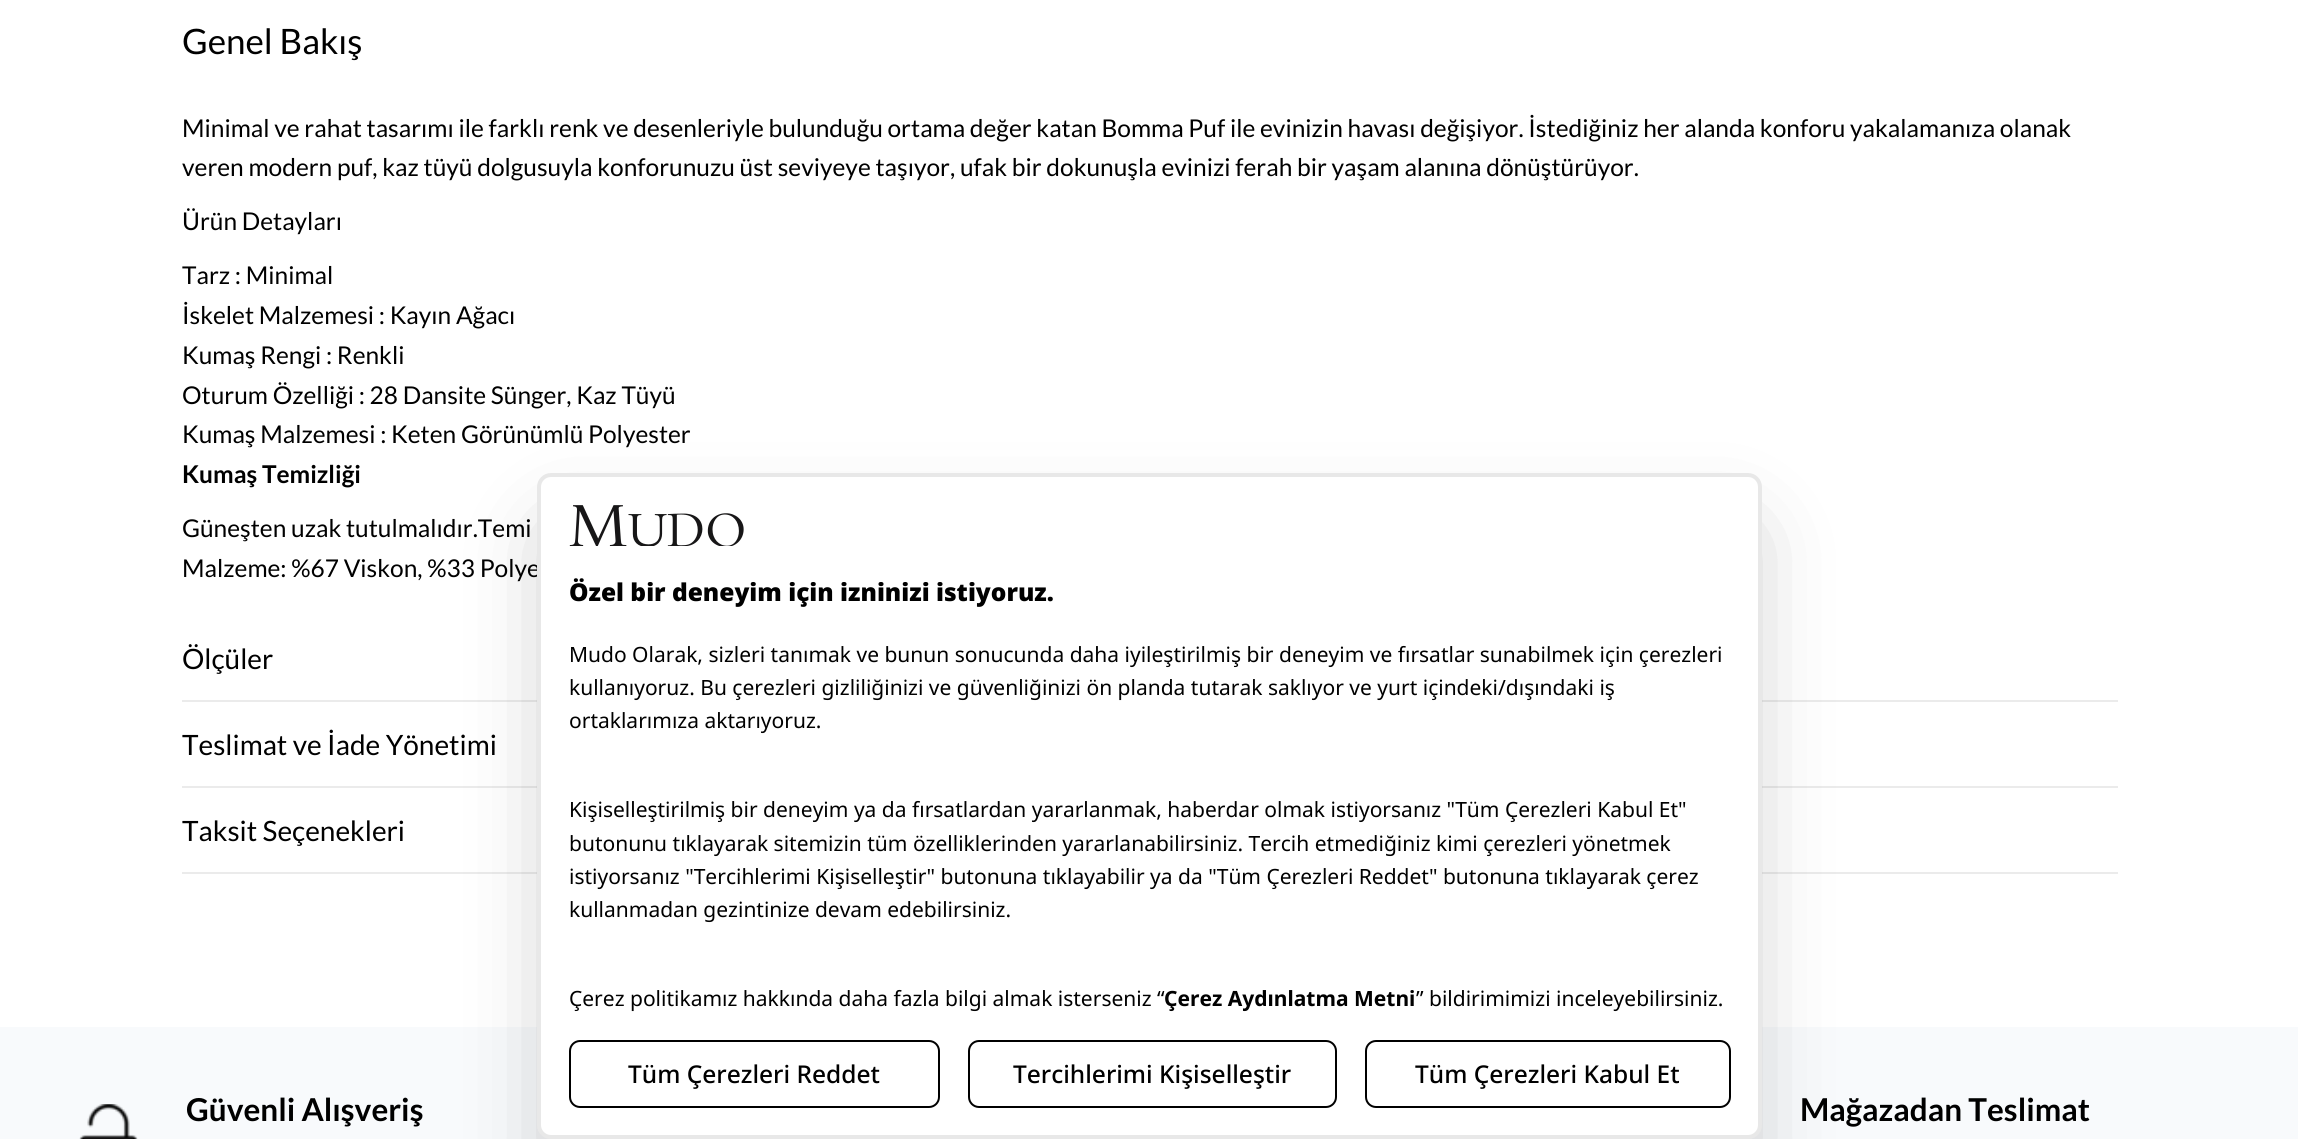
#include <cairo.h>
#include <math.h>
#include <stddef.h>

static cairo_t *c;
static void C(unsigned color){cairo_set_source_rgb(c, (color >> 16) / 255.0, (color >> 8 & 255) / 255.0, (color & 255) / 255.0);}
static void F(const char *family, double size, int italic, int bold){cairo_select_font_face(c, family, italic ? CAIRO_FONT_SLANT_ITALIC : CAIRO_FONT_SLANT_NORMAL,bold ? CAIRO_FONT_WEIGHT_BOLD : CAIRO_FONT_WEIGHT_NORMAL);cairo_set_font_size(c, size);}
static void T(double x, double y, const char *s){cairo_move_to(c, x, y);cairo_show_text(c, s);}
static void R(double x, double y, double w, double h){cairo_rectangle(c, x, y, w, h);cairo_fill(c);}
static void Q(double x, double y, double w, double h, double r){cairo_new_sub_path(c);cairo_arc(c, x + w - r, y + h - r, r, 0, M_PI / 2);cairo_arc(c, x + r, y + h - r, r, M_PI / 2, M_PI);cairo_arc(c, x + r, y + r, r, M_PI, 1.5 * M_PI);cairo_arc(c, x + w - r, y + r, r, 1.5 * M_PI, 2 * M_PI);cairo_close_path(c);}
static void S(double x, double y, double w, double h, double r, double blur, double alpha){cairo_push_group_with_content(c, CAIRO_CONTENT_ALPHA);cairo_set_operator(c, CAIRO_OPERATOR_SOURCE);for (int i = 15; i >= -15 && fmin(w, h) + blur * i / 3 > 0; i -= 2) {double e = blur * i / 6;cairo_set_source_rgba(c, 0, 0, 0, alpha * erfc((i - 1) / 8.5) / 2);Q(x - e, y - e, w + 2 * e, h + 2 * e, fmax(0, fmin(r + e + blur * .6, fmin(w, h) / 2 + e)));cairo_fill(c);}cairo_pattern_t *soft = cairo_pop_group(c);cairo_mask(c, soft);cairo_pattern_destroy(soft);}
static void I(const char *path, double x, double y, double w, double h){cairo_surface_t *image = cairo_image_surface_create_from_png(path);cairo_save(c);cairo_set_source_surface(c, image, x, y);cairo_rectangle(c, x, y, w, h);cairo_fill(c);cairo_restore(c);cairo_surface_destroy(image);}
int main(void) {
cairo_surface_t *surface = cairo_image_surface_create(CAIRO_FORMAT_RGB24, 2298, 1139);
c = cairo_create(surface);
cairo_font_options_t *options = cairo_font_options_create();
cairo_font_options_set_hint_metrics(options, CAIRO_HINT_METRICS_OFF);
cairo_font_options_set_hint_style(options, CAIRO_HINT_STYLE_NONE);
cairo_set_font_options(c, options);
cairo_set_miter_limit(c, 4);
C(0xffffff);
cairo_paint(c);
F("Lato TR",35,0,0);
C(0x000000);
T(182,54,"Genel Bakış");
F("Lato TR",24.5,0,0);
T(182,137,"Minimal ve rahat tasarımı ile farklı renk ve desenleriyle bulunduğu ortama değer katan Bomma Puf ile evinizin havası değişiyor. İstediğiniz her alanda konforu yakalamanıza olanak");
T(182,176,"veren modern puf, kaz tüyü dolgusuyla konforunuzu üst seviyeye taşıyor, ufak bir dokunuşla evinizi ferah bir yaşam alanına dönüştürüyor.");
T(182,230,"Ürün Detayları");
T(182,284,"Tarz : Minimal");
T(182,324,"İskelet Malzemesi : Kayın Ağacı");
T(182,364,"Kumaş Rengi : Renkli");
T(182,404,"Oturum Özelliği : 28 Dansite Sünger, Kaz Tüyü");
T(182,443,"Kumaş Malzemesi : Keten Görünümlü Polyester");
F("Lato TR",24.5,0,1);
T(182,483,"Kumaş Temizliği");
F("Lato TR",24.5,0,0);
T(182,537,"Güneşten uzak tutulmalıdır.Temi");
T(182,577,"Malzeme: %67 Viskon, %33 Polye");
C(0xebebeb);
R(182,700,1936,2);
F("Lato TR",28,0,0);
C(0x000000);
T(182,669,"Ölçüler");
C(0xebebeb);
R(182,786,1936,2);
C(0x000000);
T(182,755,"Teslimat ve İade Yönetimi");
C(0xebebeb);
R(182,872,1936,2);
C(0x000000);
T(182,841,"Taksit Seçenekleri");
C(0xf8fafc);
R(0,1027,2298,112);
I("1.png",79,1104,59,35);
F("Lato TR",31.5,0,1);
C(0x000000);
T(186,1121,"Güvenli Alışveriş");
T(1800,1121,"Mağazadan Teslimat");
C(0x000000);
S(558,537,1183,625,0,44,.25);
C(0xffffff);
Q(537,473,1225,666,14);
cairo_fill(c);
Q(539,475,1221,662,12);
cairo_set_source_rgba(c,0,0,0,0.09);
cairo_set_line_width(c,4);
cairo_stroke(c);
I("2.png",569,505,175,41);
F("Noto Sans Black",24.5,0,0);
C(0x000000);
T(569,601,"Özel bir deneyim için izninizi istiyoruz.");
F("Noto Sans",21,0,0);
T(569,662,"Mudo Olarak, sizleri tanımak ve bunun sonucunda daha iyileştirilmiş bir deneyim ve fırsatlar sunabilmek için çerezleri");
T(569,695,"kullanıyoruz. Bu çerezleri gizliliğinizi ve güvenliğinizi ön planda tutarak saklıyor ve yurt içindeki/dışındaki iş");
T(569,728,"ortaklarımıza aktarıyoruz.");
T(569,817,"Kişiselleştirilmiş bir deneyim ya da fırsatlardan yararlanmak, haberdar olmak istiyorsanız \"Tüm Çerezleri Kabul Et\"");
T(569,851,"butonunu tıklayarak sitemizin tüm özelliklerinden yararlanabilirsiniz. Tercih etmediğiniz kimi çerezleri yönetmek");
T(569,884,"istiyorsanız \"Tercihlerimi Kişiselleştir\" butonuna tıklayabilir ya da \"Tüm Çerezleri Reddet\" butonuna tıklayarak çerez");
T(569,917,"kullanmadan gezintinize devam edebilirsiniz.");
T(569,1006,"Çerez politikamız hakkında daha fazla bilgi almak isterseniz “");
F("Noto Sans",21,0,1);
T(1164,1006,"Çerez Aydınlatma Metni");
F("Noto Sans",21,0,0);
T(1416,1006,"” bildirimimizi inceleyebilirsiniz.");
Q(570,1041,369,66,10);
cairo_set_line_width(c,2);
cairo_stroke(c);
F("Noto Sans Medium",24.5,0,0);
T(628,1083,"Tüm Çerezleri Reddet");
Q(969,1041,367,66,10);
cairo_stroke(c);
T(1013,1083,"Tercihlerimi Kişiselleştir");
Q(1366,1041,364,66,10);
cairo_stroke(c);
T(1415,1083,"Tüm Çerezleri Kabul Et");
cairo_surface_write_to_png(surface, "o.png");
cairo_font_options_destroy(options);
cairo_destroy(c);
cairo_surface_destroy(surface);
return 0;
}
